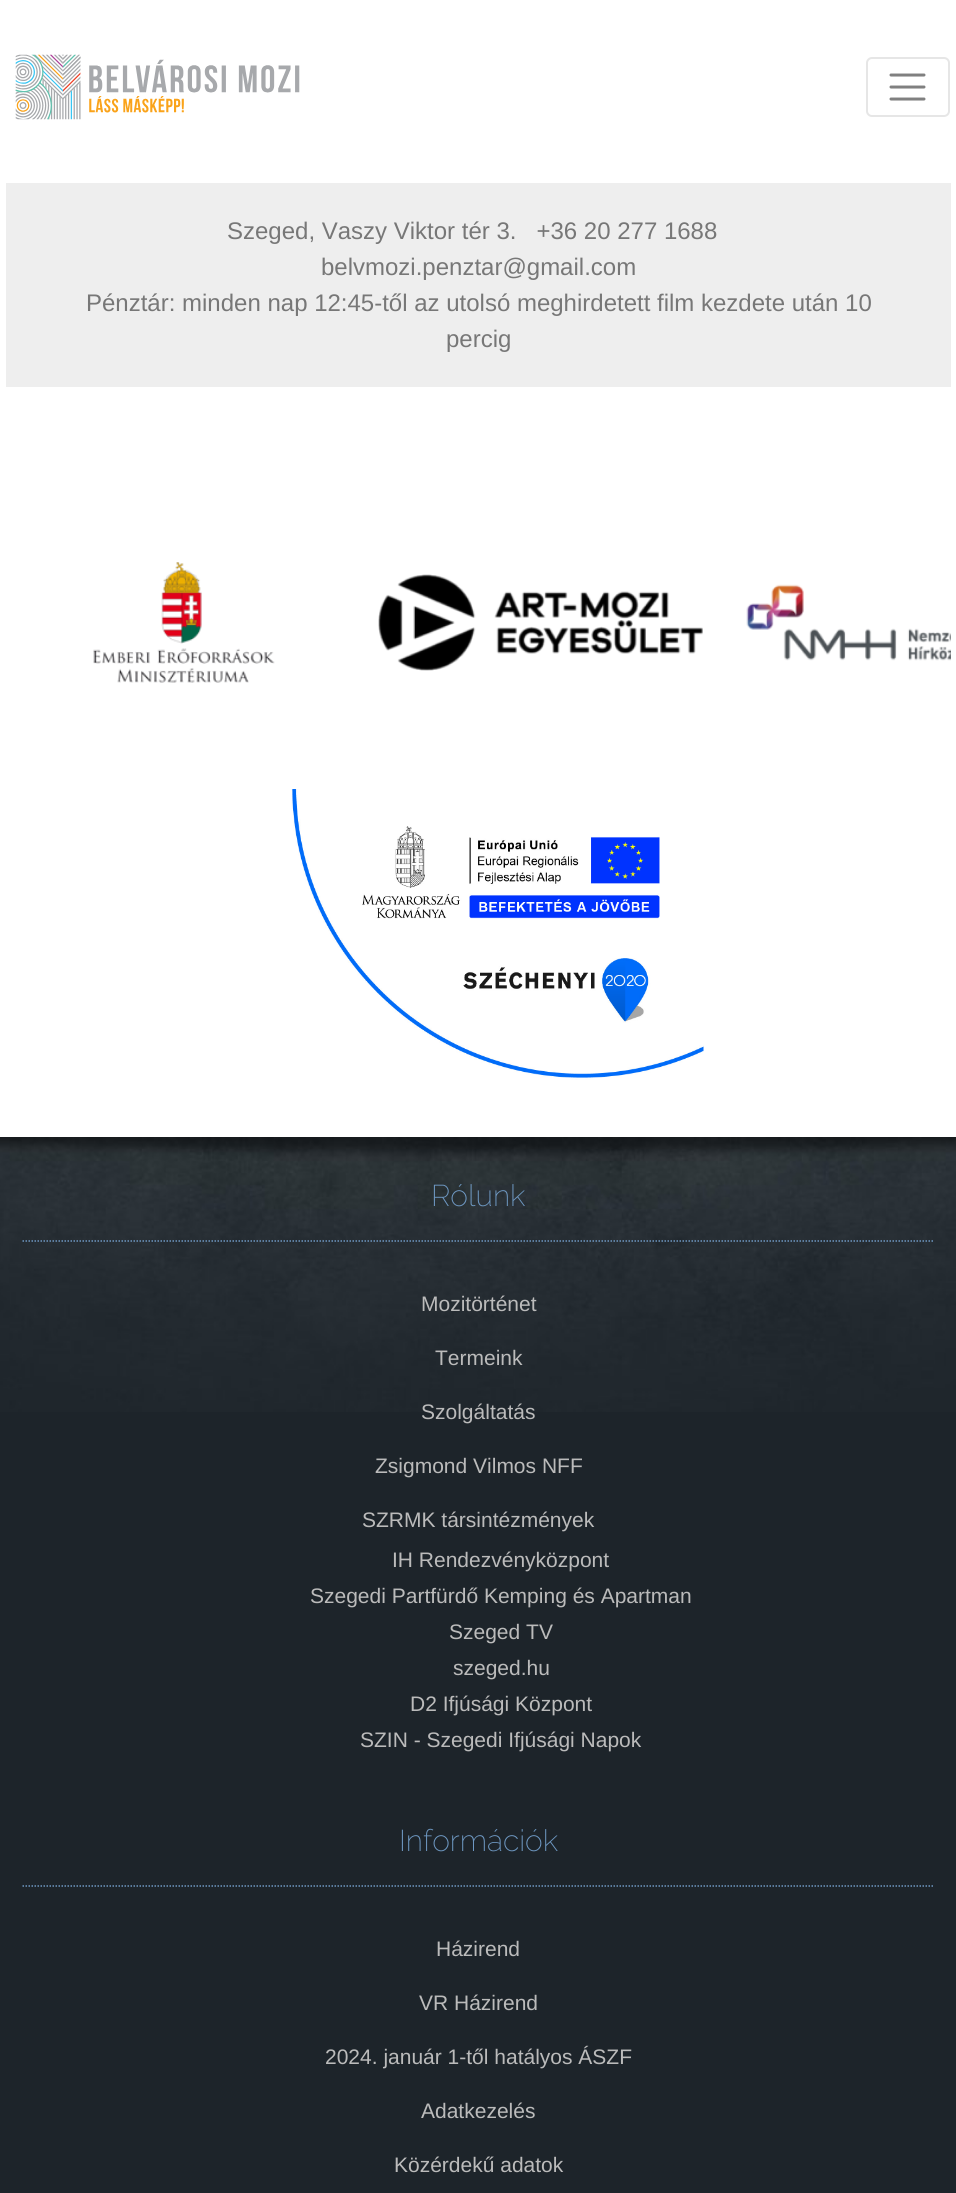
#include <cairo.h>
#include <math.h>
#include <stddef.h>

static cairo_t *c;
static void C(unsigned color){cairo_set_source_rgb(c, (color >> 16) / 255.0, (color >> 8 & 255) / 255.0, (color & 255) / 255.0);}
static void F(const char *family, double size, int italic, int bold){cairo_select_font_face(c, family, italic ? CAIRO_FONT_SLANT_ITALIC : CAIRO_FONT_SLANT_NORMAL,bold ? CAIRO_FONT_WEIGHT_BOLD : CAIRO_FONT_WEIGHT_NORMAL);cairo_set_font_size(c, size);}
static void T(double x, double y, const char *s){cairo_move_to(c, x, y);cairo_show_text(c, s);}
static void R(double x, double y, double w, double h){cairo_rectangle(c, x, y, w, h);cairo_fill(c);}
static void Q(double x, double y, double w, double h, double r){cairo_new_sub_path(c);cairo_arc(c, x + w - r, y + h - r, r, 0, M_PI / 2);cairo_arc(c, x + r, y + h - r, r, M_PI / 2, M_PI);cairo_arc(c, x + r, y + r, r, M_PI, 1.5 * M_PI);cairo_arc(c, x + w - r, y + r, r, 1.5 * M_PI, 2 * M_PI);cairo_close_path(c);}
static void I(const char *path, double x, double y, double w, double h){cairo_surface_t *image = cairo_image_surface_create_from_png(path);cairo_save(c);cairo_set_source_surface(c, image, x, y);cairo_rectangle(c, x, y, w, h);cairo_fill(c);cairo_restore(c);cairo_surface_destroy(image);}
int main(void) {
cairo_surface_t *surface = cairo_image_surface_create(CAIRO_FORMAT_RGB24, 956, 2193);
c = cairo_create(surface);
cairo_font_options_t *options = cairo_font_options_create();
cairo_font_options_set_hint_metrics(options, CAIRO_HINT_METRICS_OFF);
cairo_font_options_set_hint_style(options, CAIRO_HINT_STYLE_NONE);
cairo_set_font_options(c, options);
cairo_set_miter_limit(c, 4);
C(0xffffff);
cairo_paint(c);
I("1.png",15,54,285,66);
Q(867,58,82,58,5);
C(0xe6e6e6);
cairo_stroke(c);
cairo_new_path(c);
cairo_move_to(c,891,75);
cairo_line_to(c,924,75);
cairo_move_to(c,891,87);
cairo_line_to(c,924,87);
cairo_move_to(c,891,99);
cairo_line_to(c,924,99);
C(0x808080);
cairo_set_line_width(c,3);
cairo_set_line_cap(c,CAIRO_LINE_CAP_ROUND);
cairo_stroke(c);
C(0xeeeeee);
R(6,183,945,204);
F("Liberation Sans",24,0,0);
C(0x777777);
T(227,239,"Szeged, Vaszy Viktor tér 3.   +36 20 277 1688");
T(321,275,"belvmozi.penztar@gmail.com");
T(86,311,"Pénztár: minden nap 12:45-től az utolsó meghirdetett film kezdete után 10");
T(446,347,"percig");
I("2.png",93,562,182,121);
I("3.png",378,574,325,97);
I("4.png",746,584,205,77);
I("5.png",291,789,413,291);
C(0x1d242a);
R(0,1412,956,781);
I("6.png",0,1137,956,275);
cairo_new_path(c);
cairo_move_to(c,22.5,1241);
cairo_line_to(c,934.5,1241);
C(0x6e98c2);
cairo_set_line_width(c,1.5);
cairo_set_line_cap(c,CAIRO_LINE_CAP_BUTT);
cairo_set_dash(c,(double[]){1.5,1.5},2,0);
cairo_stroke(c);
F("Raleway ExtraLight",30,0,0);
T(431,1206,"Rólunk");
F("Liberation Sans",21,0,0);
C(0xbbbbbb);
T(421,1311,"Mozitörténet");
T(435,1365,"Termeink");
T(421,1419,"Szolgáltatás");
T(375,1473,"Zsigmond Vilmos NFF");
T(362,1527,"SZRMK társintézmények");
T(392,1567,"IH Rendezvényközpont");
T(310,1603,"Szegedi Partfürdő Kemping és Apartman");
T(449,1639,"Szeged TV");
T(453,1675,"szeged.hu");
T(410,1711,"D2 Ifjúsági Központ");
T(360,1747,"SZIN - Szegedi Ifjúsági Napok");
cairo_new_path(c);
cairo_move_to(c,22.5,1886);
cairo_line_to(c,934.5,1886);
C(0x6e98c2);
cairo_stroke(c);
F("Raleway ExtraLight",30,0,0);
T(399,1851,"Információk");
F("Liberation Sans",21,0,0);
C(0xbbbbbb);
T(436,1956,"Házirend");
T(419,2010,"VR Házirend");
T(325,2064,"2024. január 1-től hatályos ÁSZF");
T(421,2118,"Adatkezelés");
T(394,2172,"Közérdekű adatok");
cairo_surface_write_to_png(surface, "o.png");
cairo_font_options_destroy(options);
cairo_destroy(c);
cairo_surface_destroy(surface);
return 0;
}
